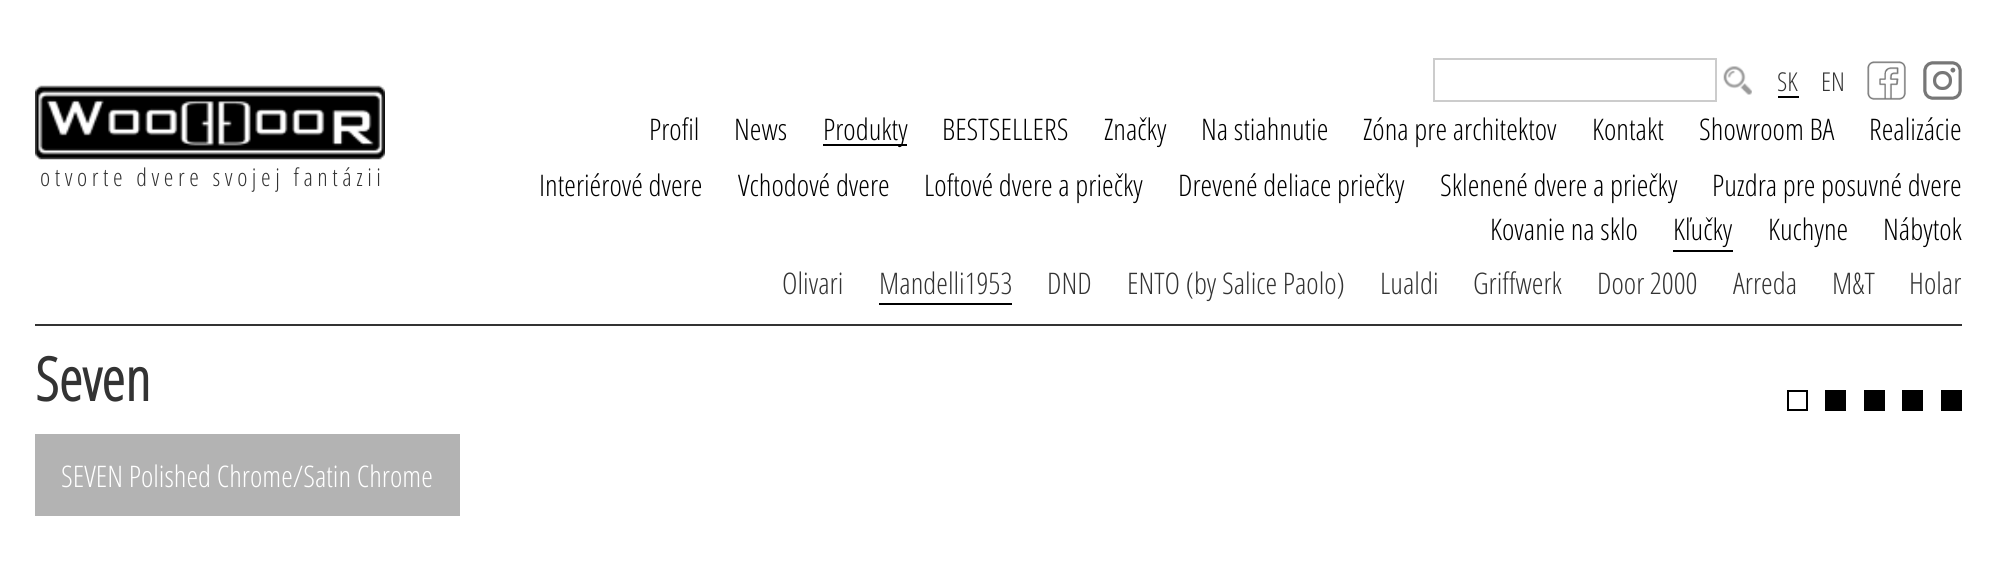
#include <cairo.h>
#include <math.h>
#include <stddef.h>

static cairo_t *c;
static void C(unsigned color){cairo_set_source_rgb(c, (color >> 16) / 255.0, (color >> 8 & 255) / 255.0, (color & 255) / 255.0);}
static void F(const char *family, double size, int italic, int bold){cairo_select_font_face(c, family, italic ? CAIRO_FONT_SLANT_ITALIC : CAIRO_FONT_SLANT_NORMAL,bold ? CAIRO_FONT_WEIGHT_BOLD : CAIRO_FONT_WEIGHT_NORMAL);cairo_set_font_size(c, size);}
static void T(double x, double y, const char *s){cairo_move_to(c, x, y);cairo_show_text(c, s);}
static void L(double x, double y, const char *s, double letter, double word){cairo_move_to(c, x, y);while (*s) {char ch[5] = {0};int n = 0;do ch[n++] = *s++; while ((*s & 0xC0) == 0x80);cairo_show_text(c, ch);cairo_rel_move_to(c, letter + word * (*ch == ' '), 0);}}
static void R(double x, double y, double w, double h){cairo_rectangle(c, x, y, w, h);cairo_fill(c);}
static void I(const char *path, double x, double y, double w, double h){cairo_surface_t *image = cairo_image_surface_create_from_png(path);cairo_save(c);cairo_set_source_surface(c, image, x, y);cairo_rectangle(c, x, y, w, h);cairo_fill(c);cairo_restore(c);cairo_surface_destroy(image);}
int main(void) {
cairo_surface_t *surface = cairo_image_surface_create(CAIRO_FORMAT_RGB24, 1996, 564);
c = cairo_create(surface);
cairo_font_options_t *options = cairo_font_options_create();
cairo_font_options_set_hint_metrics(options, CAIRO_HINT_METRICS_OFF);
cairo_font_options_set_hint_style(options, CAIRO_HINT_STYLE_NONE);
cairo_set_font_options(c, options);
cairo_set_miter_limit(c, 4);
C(0xffffff);
cairo_paint(c);
C(0x333333);
R(35,324,1927,2);
cairo_rectangle(c,1434,59,282,42);
C(0xcccccc);
cairo_stroke(c);
I("1.png",1723,66,29,29);
C(0x000000);
R(1778,96,21,2);
F("Open Sans Condensed Light",26,0,0);
C(0x333333);
T(1777,91,"SK");
T(1821,91,"EN");
I("2.png",1867,61,39,39);
I("3.png",1923,61,39,39);
I("4.png",35,85,350,75);
F("Open Sans Condensed Light",29.75,0,0);
C(0x000000);
T(649,140,"Profil");
T(734,140,"News");
R(823,144,84,2);
T(823,140,"Produkty");
T(942,140,"BESTSELLERS");
T(1104,140,"Značky");
T(1201,140,"Na stiahnutie");
T(1363,140,"Zóna pre architektov");
T(1592,140,"Kontakt");
T(1699,140,"Showroom BA");
T(1869,140,"Realizácie");
T(539,196,"Interiérové dvere");
T(738,196,"Vchodové dvere");
T(924,196,"Loftové dvere a priečky");
T(1178,196,"Drevené deliace priečky");
T(1440,196,"Sklenené dvere a priečky");
T(1712,196,"Puzdra pre posuvné dvere");
T(1490,240,"Kovanie na sklo");
R(1673,250,60,2);
T(1673,240,"Kľučky");
T(1768,240,"Kuchyne");
T(1883,240,"Nábytok");
F("Open Sans Condensed Light",24.5,0,0);
C(0x333333);
L(40,186,"otvorte dvere svojej fantázii",4.55,0);
F("Open Sans Condensed Light",29.75,0,0);
T(782,294,"Olivari");
T(879,294,"Mandelli1953");
C(0x000000);
R(879,303,133,2);
C(0x333333);
T(1047,294,"DND");
T(1127,294,"ENTO (by Salice Paolo)");
T(1380,294,"Lualdi");
T(1473,294,"Griffwerk");
T(1597,294,"Door 2000");
T(1733,294,"Arreda");
T(1832,294,"M&T");
T(1909,294,"Holar");
F("Open Sans Condensed",60,0,1);
T(35,401,"Seven");
cairo_rectangle(c,1788,391,19,19);
C(0x000000);
cairo_stroke(c);
R(1825,390,21,21);
R(1864,390,21,21);
R(1902,390,21,21);
R(1941,390,21,21);
C(0xb3b3b3);
R(35,434,425,82);
F("Open Sans Condensed Light",29.75,0,0);
C(0xffffff);
T(61,487,"SEVEN Polished Chrome/Satin Chrome");
cairo_surface_write_to_png(surface, "o.png");
cairo_font_options_destroy(options);
cairo_destroy(c);
cairo_surface_destroy(surface);
return 0;
}
